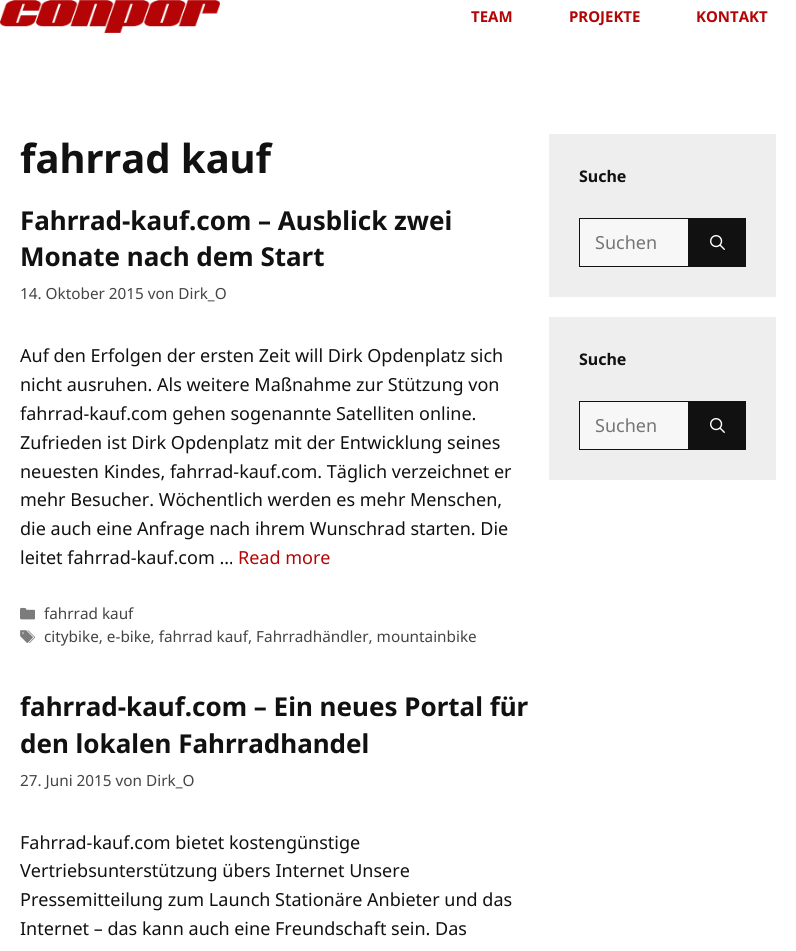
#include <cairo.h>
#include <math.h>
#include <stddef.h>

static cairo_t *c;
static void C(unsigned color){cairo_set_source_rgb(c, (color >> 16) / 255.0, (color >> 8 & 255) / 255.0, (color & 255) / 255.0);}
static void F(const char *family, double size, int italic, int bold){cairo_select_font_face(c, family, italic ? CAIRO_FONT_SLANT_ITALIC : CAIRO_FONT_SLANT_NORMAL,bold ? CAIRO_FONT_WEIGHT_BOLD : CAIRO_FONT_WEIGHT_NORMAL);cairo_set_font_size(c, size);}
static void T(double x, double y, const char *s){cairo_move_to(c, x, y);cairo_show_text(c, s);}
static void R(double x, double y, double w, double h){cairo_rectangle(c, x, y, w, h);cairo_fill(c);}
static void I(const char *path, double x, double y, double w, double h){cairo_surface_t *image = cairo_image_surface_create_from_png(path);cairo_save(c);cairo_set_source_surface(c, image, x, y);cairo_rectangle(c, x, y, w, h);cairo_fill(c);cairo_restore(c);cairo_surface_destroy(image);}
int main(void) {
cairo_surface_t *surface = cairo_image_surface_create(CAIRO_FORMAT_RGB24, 796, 951);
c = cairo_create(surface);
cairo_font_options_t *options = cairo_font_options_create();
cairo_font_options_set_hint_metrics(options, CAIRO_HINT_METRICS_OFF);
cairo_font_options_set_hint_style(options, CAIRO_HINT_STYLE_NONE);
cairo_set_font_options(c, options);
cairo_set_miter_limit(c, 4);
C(0xffffff);
cairo_paint(c);
I("1.png",0,0,220,33);
F("Noto Sans",15,0,1);
C(0xb40505);
T(471,22,"TEAM");
T(569,22,"PROJEKTE");
T(696,22,"KONTAKT");
F("Noto Sans",40,0,1);
C(0x111111);
T(20,173,"fahrrad kauf");
F("Noto Sans",26,0,1);
T(20,230,"Fahrrad-kauf.com – Ausblick zwei");
T(20,266,"Monate nach dem Start");
F("Noto Sans",15.3,0,0);
C(0x444444);
T(20,299,"14. Oktober 2015 von Dirk_O");
F("Noto Sans",18,0,0);
C(0x111111);
T(20,362,"Auf den Erfolgen der ersten Zeit will Dirk Opdenplatz sich");
T(20,391,"nicht ausruhen. Als weitere Maßnahme zur Stützung von");
T(20,420,"fahrrad-kauf.com gehen sogenannte Satelliten online.");
T(20,449,"Zufrieden ist Dirk Opdenplatz mit der Entwicklung seines");
T(20,478,"neuesten Kindes, fahrrad-kauf.com. Täglich verzeichnet er");
T(20,506,"mehr Besucher. Wöchentlich werden es mehr Menschen,");
T(20,535,"die auch eine Anfrage nach ihrem Wunschrad starten. Die");
T(20,564,"leitet fahrrad-kauf.com …");
C(0xb40505);
T(238,564,"Read more");
I("2.png",20,607,15,13);
F("Noto Sans",15.3,0,0);
C(0x444444);
T(44,619,"fahrrad kauf");
I("3.png",20,630,15,13);
T(44,642,"citybike, e-bike, fahrrad kauf, Fahrradhändler, mountainbike");
F("Noto Sans",26,0,1);
C(0x111111);
T(20,716,"fahrrad-kauf.com – Ein neues Portal für");
T(20,753,"den lokalen Fahrradhandel");
F("Noto Sans",15.3,0,0);
C(0x444444);
T(20,786,"27. Juni 2015 von Dirk_O");
F("Noto Sans",18,0,0);
C(0x111111);
T(20,849,"Fahrrad-kauf.com bietet kostengünstige");
T(20,877,"Vertriebsunterstützung übers Internet Unsere");
T(20,906,"Pressemitteilung zum Launch Stationäre Anbieter und das");
T(20,935,"Internet – das kann auch eine Freundschaft sein. Das");
C(0xeeeeee);
R(549,134,227,163);
F("Noto Sans",16,0,1);
C(0x111111);
T(579,182,"Suche");
C(0xf7f7f7);
cairo_rectangle(c,579.5,218.5,109,48);
cairo_fill_preserve(c);
C(0x111111);
cairo_set_line_width(c,1);
cairo_stroke(c);
F("Noto Sans",18,0,0);
C(0x757575);
T(595,249,"Suchen");
C(0x111111);
R(689,218,57,49);
I("4.png",710,235,15,15);
C(0xeeeeee);
R(549,317,227,163);
F("Noto Sans",16,0,1);
C(0x111111);
T(579,365,"Suche");
C(0xf7f7f7);
cairo_rectangle(c,579.5,401.5,109,48);
cairo_fill_preserve(c);
C(0x111111);
cairo_stroke(c);
F("Noto Sans",18,0,0);
C(0x757575);
T(595,432,"Suchen");
C(0x111111);
R(689,401,57,49);
I("4.png",710,418,15,15);
cairo_surface_write_to_png(surface, "o.png");
cairo_font_options_destroy(options);
cairo_destroy(c);
cairo_surface_destroy(surface);
return 0;
}
